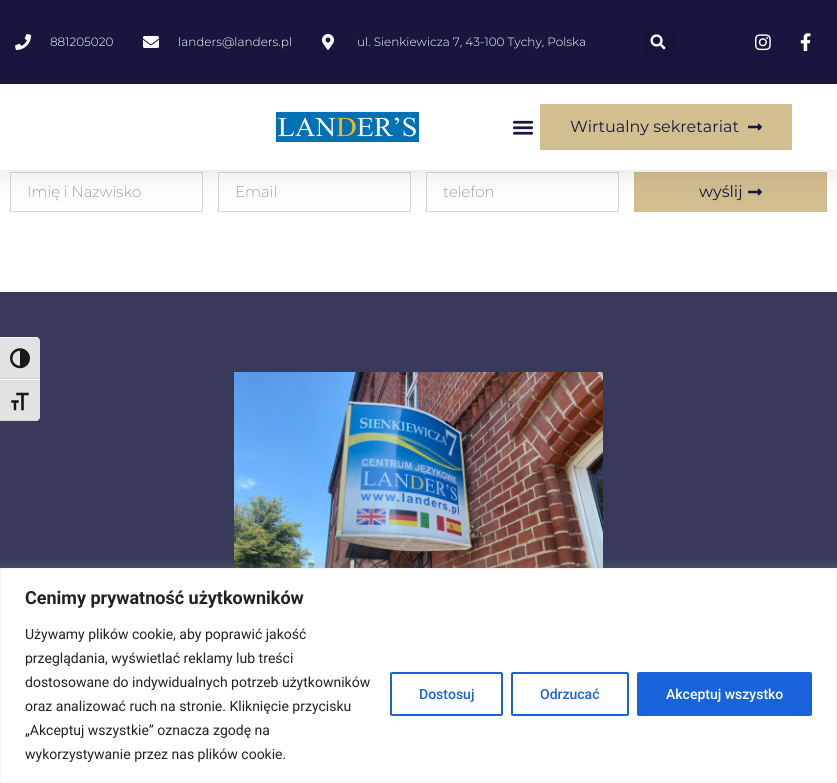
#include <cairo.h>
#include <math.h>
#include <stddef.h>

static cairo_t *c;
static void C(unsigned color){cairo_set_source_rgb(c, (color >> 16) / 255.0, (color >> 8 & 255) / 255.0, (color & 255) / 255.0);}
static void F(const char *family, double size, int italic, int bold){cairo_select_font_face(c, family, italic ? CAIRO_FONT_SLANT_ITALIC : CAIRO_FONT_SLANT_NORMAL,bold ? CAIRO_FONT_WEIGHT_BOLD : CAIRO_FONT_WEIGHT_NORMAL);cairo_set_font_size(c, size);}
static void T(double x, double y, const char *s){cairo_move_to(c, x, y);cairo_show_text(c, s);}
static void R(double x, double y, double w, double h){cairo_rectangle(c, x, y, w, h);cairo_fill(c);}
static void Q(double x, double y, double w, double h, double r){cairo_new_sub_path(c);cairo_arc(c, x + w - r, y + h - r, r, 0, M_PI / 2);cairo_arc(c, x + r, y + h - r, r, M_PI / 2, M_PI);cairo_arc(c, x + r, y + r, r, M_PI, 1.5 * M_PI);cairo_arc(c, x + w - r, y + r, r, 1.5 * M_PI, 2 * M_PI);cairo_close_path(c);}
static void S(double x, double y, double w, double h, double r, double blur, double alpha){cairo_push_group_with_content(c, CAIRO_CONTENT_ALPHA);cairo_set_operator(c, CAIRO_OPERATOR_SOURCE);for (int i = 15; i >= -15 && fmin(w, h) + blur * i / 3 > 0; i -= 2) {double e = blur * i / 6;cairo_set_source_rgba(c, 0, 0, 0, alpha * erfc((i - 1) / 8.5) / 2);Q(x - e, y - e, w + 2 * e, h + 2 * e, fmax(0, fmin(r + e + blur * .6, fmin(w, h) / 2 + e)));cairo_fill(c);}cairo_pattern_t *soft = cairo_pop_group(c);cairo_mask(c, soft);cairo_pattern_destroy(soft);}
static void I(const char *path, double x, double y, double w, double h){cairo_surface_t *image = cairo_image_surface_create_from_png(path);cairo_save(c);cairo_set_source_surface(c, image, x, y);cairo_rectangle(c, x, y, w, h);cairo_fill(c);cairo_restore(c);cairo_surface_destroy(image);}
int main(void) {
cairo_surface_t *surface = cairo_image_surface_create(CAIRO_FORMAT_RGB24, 837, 783);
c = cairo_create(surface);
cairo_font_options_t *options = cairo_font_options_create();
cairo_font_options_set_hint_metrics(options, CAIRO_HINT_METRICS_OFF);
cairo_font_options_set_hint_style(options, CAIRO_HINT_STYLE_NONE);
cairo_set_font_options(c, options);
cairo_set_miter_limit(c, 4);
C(0xffffff);
cairo_paint(c);
cairo_rectangle(c,10.5,172.5,192,39);
C(0xd7d7d7);
cairo_set_line_width(c,1);
cairo_stroke(c);
cairo_rectangle(c,218.5,172.5,192,39);
cairo_stroke(c);
cairo_rectangle(c,426.5,172.5,192,39);
cairo_stroke(c);
C(0xd3be90);
R(634,172,193,40);
I("9.png",748,188,14,8);
C(0x000000);
S(0,5,837,170,0,15,.1);
C(0x16163f);
R(0,0,837,84);
I("1.png",15,34,16,16);
F("Montserrat Light",12,0,0);
C(0xffffff);
T(50,46,"881205020");
I("2.png",143,36,16,12);
T(178,46,"landers@landers.pl");
I("3.png",322,34,12,16);
T(357,46,"ul. Sienkiewicza 7, 43-100 Tychy, Polska");
C(0x15153c);
Q(643,27,30,30,3);
cairo_fill(c);
I("4.png",650,34,16,16);
I("5.png",755,34,16,17);
I("6.png",800,33,11,18);
C(0xffffff);
R(0,84,837,86);
I("7.png",275,111,144,32);
I("8.png",512,120,22,15);
C(0xd3be90);
R(540,104,252,46);
F("Montserrat",16,0,0);
C(0x16163f);
T(570,132,"Wirtualny sekretariat");
I("9.png",748,123,14,8);
F("Montserrat ExtraLight",15,0,0);
C(0x73738c);
T(27,197,"Imię i Nazwisko");
T(235,197,"Email");
T(443,197,"telefon");
F("Montserrat",16,0,0);
C(0x16163f);
T(699,197,"wyślij");
C(0x39395c);
R(0,292,837,276);
I("10.png",234,372,369,196);
C(0xe2e2e2);
cairo_new_path(c);
cairo_move_to(c,0,337);
cairo_line_to(c,36,337);
cairo_curve_to(c,38,337,40,339,40,341);
cairo_line_to(c,40,379);
cairo_line_to(c,0,379);
cairo_close_path(c);
cairo_fill(c);
C(0xf5f5f5);
cairo_new_path(c);
cairo_move_to(c,0,337);
cairo_line_to(c,0,338);
cairo_line_to(c,36,338);
cairo_curve_to(c,38,338,40,339,40,341);
cairo_curve_to(c,40,339,38,337,36,337);
cairo_close_path(c);
cairo_fill(c);
C(0xd2d2d2);
R(0,378,40,1);
I("11.png",10,348,20,21);
C(0xe2e2e2);
cairo_new_path(c);
cairo_move_to(c,0,379);
cairo_line_to(c,40,379);
cairo_line_to(c,40,417);
cairo_curve_to(c,40,419,38,421,36,421);
cairo_line_to(c,0,421);
cairo_close_path(c);
cairo_fill(c);
C(0xf5f5f5);
R(0,379,40,1);
C(0xd2d2d2);
cairo_new_path(c);
cairo_move_to(c,0,420);
cairo_line_to(c,0,421);
cairo_line_to(c,36,421);
cairo_curve_to(c,38,421,40,419,40,417);
cairo_curve_to(c,40,419,38,420,36,420);
cairo_close_path(c);
cairo_fill(c);
I("12.png",11,392,18,19);
C(0xacabab);
S(0,567,837,215,0,5,.3);
C(0xffffff);
cairo_rectangle(c,.5,568.5,836,214);
cairo_fill_preserve(c);
C(0xf4f4f4);
cairo_stroke(c);
F("Roboto",18,0,1);
C(0x212121);
T(25,604,"Cenimy prywatność użytkowników");
F("Roboto",14,0,0);
T(25,639,"Używamy plików cookie, aby poprawić jakość");
T(25,663,"przeglądania, wyświetlać reklamy lub treści");
T(25,687,"dostosowane do indywidualnych potrzeb użytkowników");
T(25,711,"oraz analizować ruch na stronie. Kliknięcie przycisku");
T(25,735,"„Akceptuj wszystkie” oznacza zgodę na");
T(25,759,"wykorzystywanie przez nas plików cookie.");
Q(391,673,111,42,1);
C(0x1863dc);
cairo_set_line_width(c,2);
cairo_stroke(c);
F("Roboto Medium",14,0,0);
T(419,699,"Dostosuj");
Q(512,673,116,42,1);
cairo_stroke(c);
T(540,699,"Odrzucać");
Q(638,673,173,42,1);
cairo_fill_preserve(c);
cairo_stroke(c);
C(0xffffff);
T(666,699,"Akceptuj wszystko");
cairo_surface_write_to_png(surface, "o.png");
cairo_font_options_destroy(options);
cairo_destroy(c);
cairo_surface_destroy(surface);
return 0;
}
